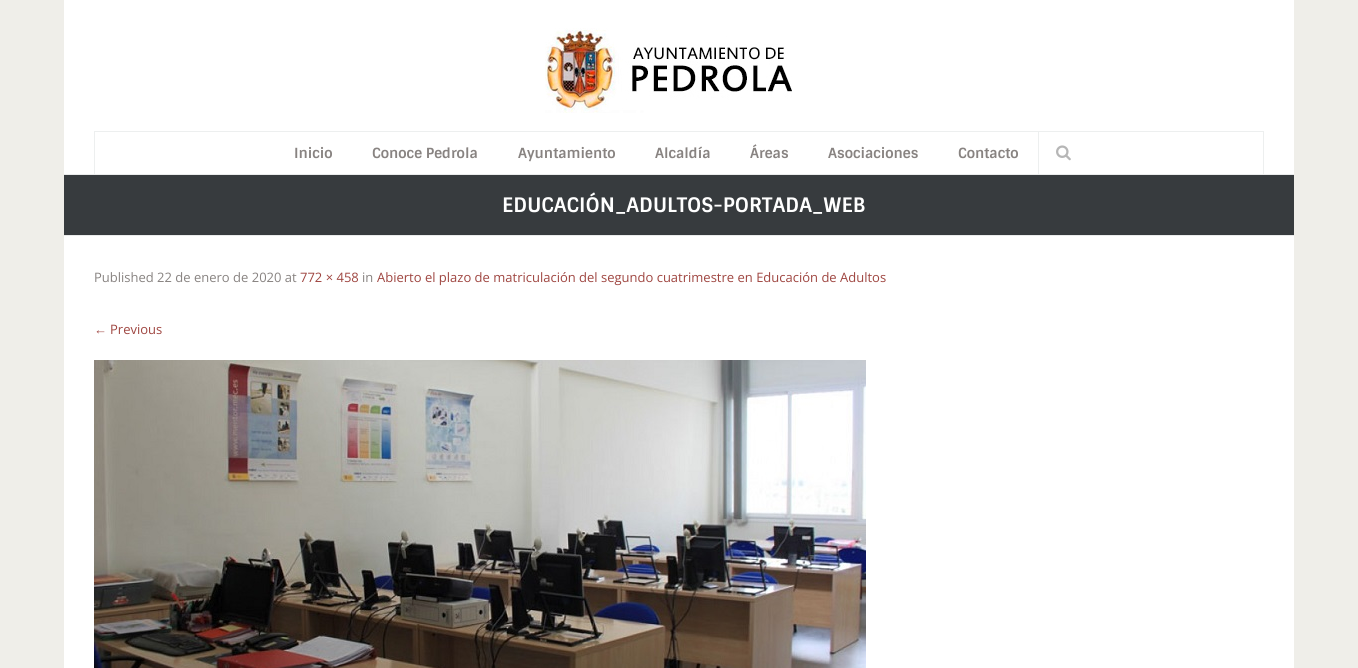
#include <cairo.h>
#include <math.h>
#include <stddef.h>

static cairo_t *c;
static void C(unsigned color){cairo_set_source_rgb(c, (color >> 16) / 255.0, (color >> 8 & 255) / 255.0, (color & 255) / 255.0);}
static void F(const char *family, double size, int italic, int bold){cairo_select_font_face(c, family, italic ? CAIRO_FONT_SLANT_ITALIC : CAIRO_FONT_SLANT_NORMAL,bold ? CAIRO_FONT_WEIGHT_BOLD : CAIRO_FONT_WEIGHT_NORMAL);cairo_set_font_size(c, size);}
static void T(double x, double y, const char *s){cairo_move_to(c, x, y);cairo_show_text(c, s);}
static void R(double x, double y, double w, double h){cairo_rectangle(c, x, y, w, h);cairo_fill(c);}
static void I(const char *path, double x, double y, double w, double h){cairo_surface_t *image = cairo_image_surface_create_from_png(path);cairo_save(c);cairo_set_source_surface(c, image, x, y);cairo_rectangle(c, x, y, w, h);cairo_fill(c);cairo_restore(c);cairo_surface_destroy(image);}
int main(void) {
cairo_surface_t *surface = cairo_image_surface_create(CAIRO_FORMAT_RGB24, 1358, 668);
c = cairo_create(surface);
cairo_font_options_t *options = cairo_font_options_create();
cairo_font_options_set_hint_metrics(options, CAIRO_HINT_METRICS_OFF);
cairo_font_options_set_hint_style(options, CAIRO_HINT_STYLE_NONE);
cairo_set_font_options(c, options);
cairo_set_miter_limit(c, 4);
C(0xefeee9);
cairo_paint(c);
C(0xffffff);
R(64,0,1230,174);
I("1.png",545,28,247,85);
C(0xedefef);
R(94,131,1170,1);
R(1263,131,1,43);
R(94,131,1,43);
F("Sintony",14,0,1);
C(0x888381);
T(294,158,"Inicio");
T(372,158,"Conoce Pedrola");
T(518,158,"Ayuntamiento");
T(655,158,"Alcaldía");
T(750,158,"Áreas");
T(828,158,"Asociaciones");
T(958,158,"Contacto");
C(0xedefef);
R(1038,132,1,42);
I("2.png",1056,145,15,16);
C(0xffffff);
R(64,236,1230,432);
C(0xeaebeb);
R(64,174,1230,1);
R(64,235,1230,1);
C(0x373b3e);
R(64,175,1230,60);
F("Sintony",20,0,1);
C(0xffffff);
T(502,212,"EDUCACIÓN_ADULTOS-PORTADA_WEB");
F("Open Sans",13,0,0);
C(0x888381);
T(94,282,"Published 22 de enero de 2020 at");
C(0x9f4641);
T(300,282,"772 × 458");
C(0x888381);
T(362,282,"in");
C(0x9f4641);
T(377,282,"Abierto el plazo de matriculación del segundo cuatrimestre en Educación de Adultos");
F("Liberation Serif",13,0,0);
T(94,334,"←");
F("Open Sans",13,0,0);
T(110,334,"Previous");
I("3.png",94,360,772,308);
cairo_surface_write_to_png(surface, "o.png");
cairo_font_options_destroy(options);
cairo_destroy(c);
cairo_surface_destroy(surface);
return 0;
}
